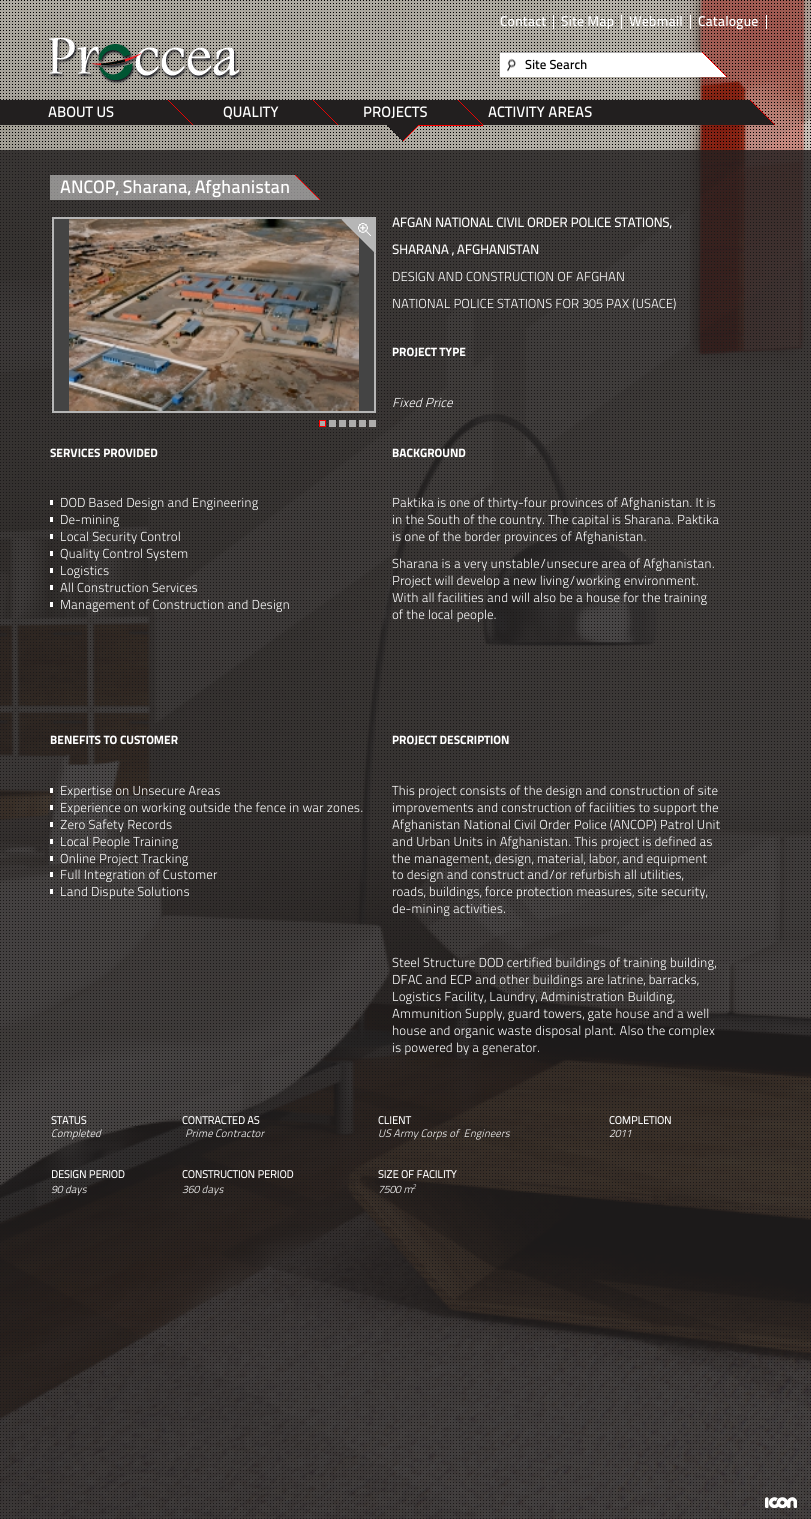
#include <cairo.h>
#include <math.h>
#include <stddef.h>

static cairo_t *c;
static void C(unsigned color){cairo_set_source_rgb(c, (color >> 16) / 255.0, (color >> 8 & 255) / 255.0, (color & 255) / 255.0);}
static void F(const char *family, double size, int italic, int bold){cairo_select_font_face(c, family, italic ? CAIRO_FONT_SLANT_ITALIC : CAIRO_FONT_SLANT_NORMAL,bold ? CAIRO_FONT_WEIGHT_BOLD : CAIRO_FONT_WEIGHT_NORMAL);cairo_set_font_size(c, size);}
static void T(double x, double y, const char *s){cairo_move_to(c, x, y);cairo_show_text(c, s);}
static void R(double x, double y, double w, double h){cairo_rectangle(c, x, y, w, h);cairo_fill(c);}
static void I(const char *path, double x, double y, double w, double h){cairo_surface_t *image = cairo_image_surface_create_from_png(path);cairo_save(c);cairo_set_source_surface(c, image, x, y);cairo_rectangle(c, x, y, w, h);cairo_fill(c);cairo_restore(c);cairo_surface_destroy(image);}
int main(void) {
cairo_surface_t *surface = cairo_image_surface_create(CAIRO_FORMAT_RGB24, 811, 1519);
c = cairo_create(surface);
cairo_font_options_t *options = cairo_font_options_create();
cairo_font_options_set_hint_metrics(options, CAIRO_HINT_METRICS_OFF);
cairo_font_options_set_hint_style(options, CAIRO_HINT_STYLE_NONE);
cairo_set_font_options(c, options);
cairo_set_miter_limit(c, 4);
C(0xffffff);
cairo_paint(c);
I("1.png",0,0,811,1519);
I("2.png",0,0,811,1519);
C(0xffffff);
R(553,15,1,14);
F("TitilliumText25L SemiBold",14,0,0);
T(500,26,"Contact");
R(621,15,1,14);
T(561,26,"Site Map");
R(690,15,1,14);
T(629,26,"Webmail");
R(766,15,1,14);
T(698,26,"Catalogue");
I("3.png",48,38,194,46);
I("4.png",500,52,227,25);
I("5.png",507,58,9,14);
F("TitilliumText25L SemiBold",13,0,0);
C(0x000000);
T(525,69,"Site Search");
I("6.png",0,100,775,25);
I("7.png",168,100,25,25);
F("TitilliumText25L SemiBold",15,0,0);
C(0xffffff);
T(48,117,"ABOUT US");
I("7.png",313,100,25,25);
T(223,117,"QUALITY");
I("7.png",458,100,25,25);
T(363,117,"PROJECTS");
I("8.png",387,125,96,17);
T(488,117,"ACTIVITY AREAS");
I("9.png",50,175,270,25);
F("TitilliumText25L SemiBold",18,0,0);
T(60,193,"ANCOP, Sharana, Afghanistan");
C(0x444444);
cairo_rectangle(c,53,218,322,194);
cairo_fill_preserve(c);
C(0xb6b6b6);
cairo_stroke(c);
I("10.png",69,219,290,192);
I("11.png",341,219,35,35);
C(0xadacab);
cairo_rectangle(c,319.5,420.5,6,6);
cairo_fill_preserve(c);
C(0xff0000);
cairo_set_line_width(c,1);
cairo_stroke(c);
C(0xadacab);
R(329,420,7,7);
R(339,420,7,7);
R(349,420,7,7);
R(359,420,7,7);
R(369,420,7,7);
F("TitilliumText25L",13,0,1);
C(0xffffff);
T(392,227,"AFGAN NATIONAL CIVIL ORDER POLICE STATIONS,");
T(392,254,"SHARANA , AFGHANISTAN");
F("TitilliumText25L Light",13,0,0);
T(392,281,"DESIGN AND CONSTRUCTION OF AFGHAN");
T(392,308,"NATIONAL POLICE STATIONS FOR 305 PAX (USACE)");
F("TitilliumText25L Black",12,0,0);
T(392,356,"PROJECT TYPE");
F("TitilliumText25L Light",13,1,0);
T(392,407,"Fixed Price");
F("TitilliumText25L Black",12,0,0);
T(50,457,"SERVICES PROVIDED");
R(50,500,3,5);
F("TitilliumText25L Light",13,0,0);
T(60,507,"DOD Based Design and Engineering");
R(50,517,3,5);
T(60,524,"De-mining");
R(50,534,3,5);
T(60,541,"Local Security Control");
R(50,551,3,5);
T(60,558,"Quality Control System");
R(50,568,3,5);
T(60,575,"Logistics");
R(50,585,3,5);
T(60,592,"All Construction Services");
R(50,602,3,5);
T(60,609,"Management of Construction and Design");
F("TitilliumText25L Black",12,0,0);
T(392,457,"BACKGROUND");
F("TitilliumText25L Light",13,0,0);
T(392,507,"Paktika is one of thirty-four provinces of Afghanistan. It is");
T(392,524,"in the South of the country. The capital is Sharana. Paktika");
T(392,541,"is one of the border provinces of Afghanistan.");
T(392,568,"Sharana is a very unstable/unsecure area of Afghanistan.");
T(392,585,"Project will develop a new living/working environment.");
T(392,602,"With all facilities and will also be a house for the training");
T(392,619,"of the local people.");
F("TitilliumText25L Black",12,0,0);
T(50,744,"BENEFITS TO CUSTOMER");
R(50,788,3,5);
F("TitilliumText25L Light",13,0,0);
T(60,795,"Expertise on Unsecure Areas");
R(50,805,3,5);
T(60,812,"Experience on working outside the fence in war zones.");
R(50,822,3,5);
T(60,829,"Zero Safety Records");
R(50,839,3,5);
T(60,846,"Local People Training");
R(50,856,3,5);
T(60,863,"Online Project Tracking");
R(50,872,3,5);
T(60,879,"Full Integration of Customer");
R(50,889,3,5);
T(60,896,"Land Dispute Solutions");
F("TitilliumText25L Black",12,0,0);
T(392,744,"PROJECT DESCRIPTION");
F("TitilliumText25L Light",13,0,0);
T(392,795,"This project consists of the design and construction of site");
T(392,812,"improvements and construction of facilities to support the");
T(392,829,"Afghanistan National Civil Order Police (ANCOP) Patrol Unit");
T(392,846,"and Urban Units in Afghanistan. This project is defined as");
T(392,863,"the management, design, material, labor, and equipment");
T(392,879,"to design and construct and/or refurbish all utilities,");
T(392,896,"roads, buildings, force protection measures, site security,");
T(392,913,"de-mining activities.");
T(392,967,"Steel Structure DOD certified buildings of training building,");
T(392,984,"DFAC and ECP and other buildings are latrine, barracks,");
T(392,1001,"Logistics Facility, Laundry, Administration Building,");
T(392,1018,"Ammunition Supply, guard towers, gate house and a well");
T(392,1035,"house and organic waste disposal plant. Also the complex");
T(392,1052,"is powered by a generator.");
F("TitilliumText25L",10.75,0,1);
T(51,1124,"STATUS");
F("TitilliumText25L Light",10.75,1,0);
T(51,1137,"Completed");
F("TitilliumText25L",10.75,0,1);
T(182,1124,"CONTRACTED AS");
F("TitilliumText25L Light",10.75,1,0);
T(185,1137,"Prime Contractor");
F("TitilliumText25L",10.75,0,1);
T(378,1124,"CLIENT");
F("TitilliumText25L Light",10.75,1,0);
T(378,1137,"US Army Corps of  Engineers");
F("TitilliumText25L",10.75,0,1);
T(609,1124,"COMPLETION");
F("TitilliumText25L Light",10.75,1,0);
T(609,1137,"2011");
F("TitilliumText25L",10.75,0,1);
T(51,1178,"DESIGN PERIOD");
T(182,1178,"CONSTRUCTION PERIOD");
T(378,1178,"SIZE OF FACILITY");
F("TitilliumText25L Light",10.75,1,0);
T(51,1193,"90 days");
T(182,1193,"360 days");
T(378,1193,"7500 m");
F("TitilliumText25L Light",7,1,0);
T(412,1189,"2");
I("12.png",765,1497,32,11);
cairo_surface_write_to_png(surface, "o.png");
cairo_font_options_destroy(options);
cairo_destroy(c);
cairo_surface_destroy(surface);
return 0;
}
